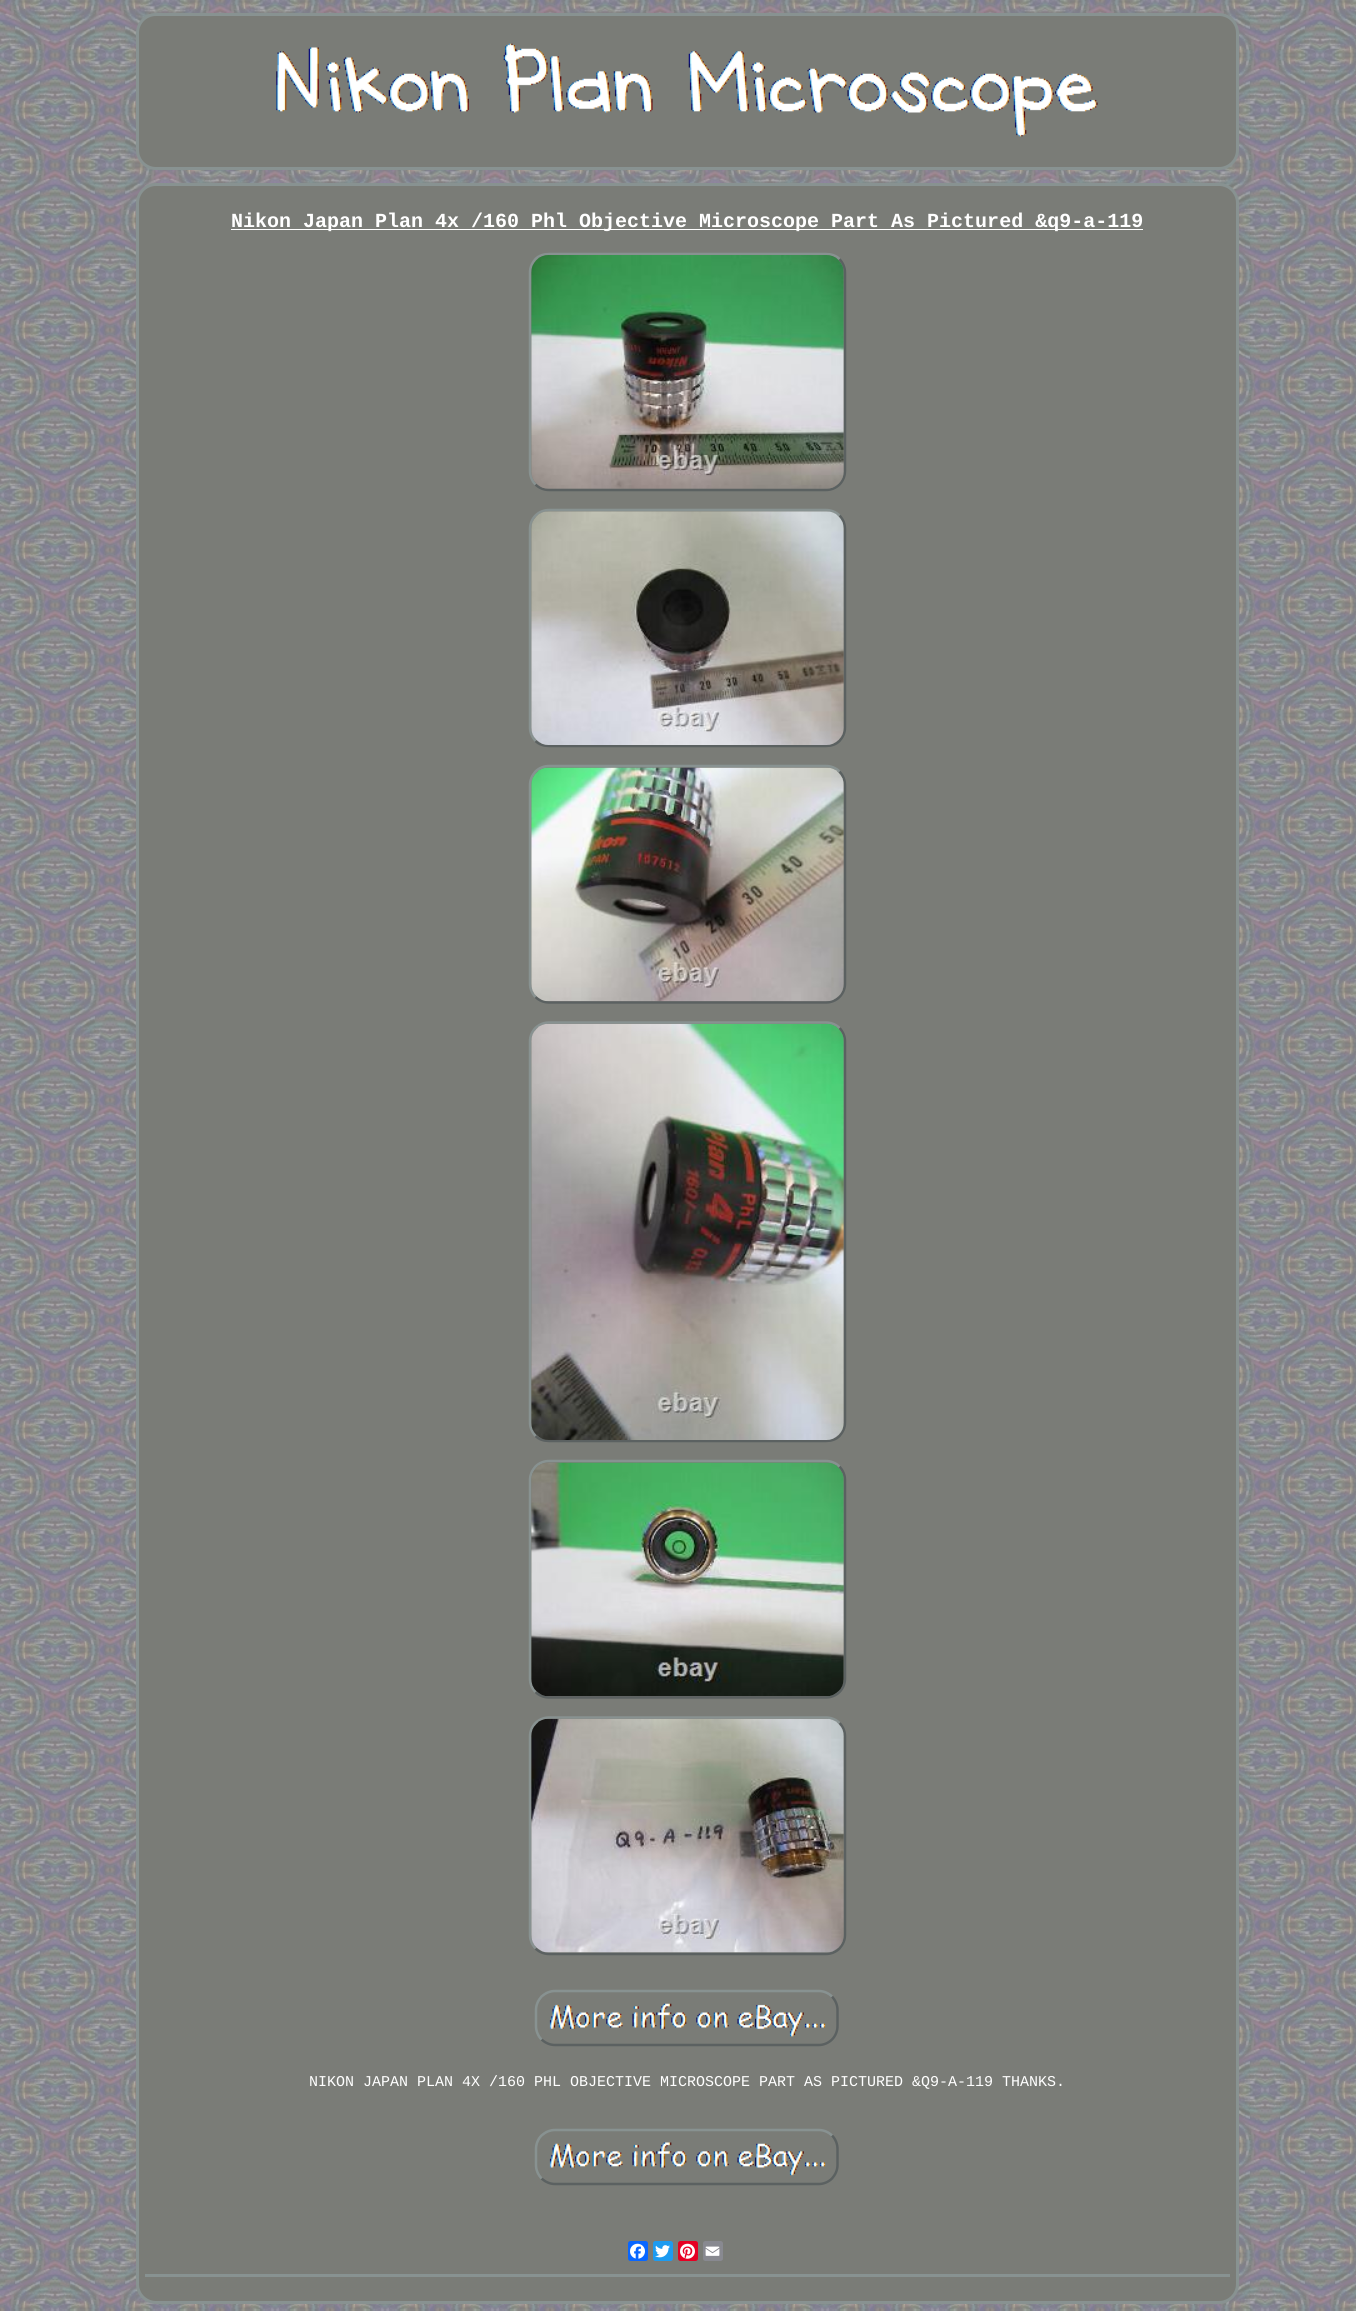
#include <cairo.h>
#include <math.h>
#include <stddef.h>

static cairo_t *c;
static void C(unsigned color){cairo_set_source_rgb(c, (color >> 16) / 255.0, (color >> 8 & 255) / 255.0, (color & 255) / 255.0);}
static void F(const char *family, double size, int italic, int bold){cairo_select_font_face(c, family, italic ? CAIRO_FONT_SLANT_ITALIC : CAIRO_FONT_SLANT_NORMAL,bold ? CAIRO_FONT_WEIGHT_BOLD : CAIRO_FONT_WEIGHT_NORMAL);cairo_set_font_size(c, size);}
static void T(double x, double y, const char *s){cairo_move_to(c, x, y);cairo_show_text(c, s);}
static void R(double x, double y, double w, double h){cairo_rectangle(c, x, y, w, h);cairo_fill(c);}
static void Q(double x, double y, double w, double h, double r){cairo_new_sub_path(c);cairo_arc(c, x + w - r, y + h - r, r, 0, M_PI / 2);cairo_arc(c, x + r, y + h - r, r, M_PI / 2, M_PI);cairo_arc(c, x + r, y + r, r, M_PI, 1.5 * M_PI);cairo_arc(c, x + w - r, y + r, r, 1.5 * M_PI, 2 * M_PI);cairo_close_path(c);}
static void I(const char *path, double x, double y, double w, double h){cairo_surface_t *image = cairo_image_surface_create_from_png(path);cairo_save(c);cairo_set_source_surface(c, image, x, y);cairo_rectangle(c, x, y, w, h);cairo_fill(c);cairo_restore(c);cairo_surface_destroy(image);}
int main(void) {
cairo_surface_t *surface = cairo_image_surface_create(CAIRO_FORMAT_RGB24, 1356, 2311);
c = cairo_create(surface);
cairo_font_options_t *options = cairo_font_options_create();
cairo_font_options_set_hint_metrics(options, CAIRO_HINT_METRICS_OFF);
cairo_font_options_set_hint_style(options, CAIRO_HINT_STYLE_NONE);
cairo_set_font_options(c, options);
cairo_set_miter_limit(c, 4);
C(0xffffff);
cairo_paint(c);
I("1.png",0,0,1356,2311);
C(0x7a7c77);
Q(137.5,14.5,1100,154,18.5);
cairo_fill_preserve(c);
C(0x889291);
cairo_set_line_width(c,3);
cairo_stroke(c);
I("2.png",276,43,822,94);
C(0x7a7c77);
Q(137.5,184.5,1100,2118,18.5);
cairo_fill_preserve(c);
C(0x889291);
cairo_stroke(c);
C(0xffffff);
R(231,229,912,1);
F("Liberation Mono",20,0,1);
T(231,227,"Nikon Japan Plan 4x /160 Phl Objective Microscope Part As Pictured &q9-a-119");
cairo_new_path(c);
cairo_move_to(c,839.5,259);
cairo_curve_to(c,843,263,845,267.5,845,272.5);
cairo_line_to(c,845,471);
cairo_curve_to(c,845,476,843,481,839.5,484.5);
cairo_curve_to(c,836,488,831,490,826,490);
cairo_line_to(c,549,490);
cairo_curve_to(c,544,490,539,488,535.5,484.5);
C(0x5b6161);
cairo_set_line_width(c,2.5);
cairo_stroke(c);
cairo_new_path(c);
cairo_move_to(c,535.5,484.5);
cairo_curve_to(c,532,481,530,476,530,471);
cairo_line_to(c,530,272.5);
cairo_curve_to(c,530,267.5,532,263,535.5,259);
cairo_curve_to(c,539,255.5,544,254,549,254);
cairo_line_to(c,826,254);
cairo_curve_to(c,831,254,836,255.5,839.5,259);
C(0x889291);
cairo_stroke(c);
I("3.png",531,255,313,234);
cairo_new_path(c);
cairo_move_to(c,839.5,515.5);
cairo_curve_to(c,843,519,845,524,845,529);
cairo_line_to(c,845,727.5);
cairo_curve_to(c,845,732.5,843,737,839.5,741);
cairo_curve_to(c,836,744.5,831,746,826,746);
cairo_line_to(c,549,746);
cairo_curve_to(c,544,746,539,744.5,535.5,741);
C(0x5b6161);
cairo_stroke(c);
cairo_new_path(c);
cairo_move_to(c,535.5,741);
cairo_curve_to(c,532,737,530,732.5,530,727.5);
cairo_line_to(c,530,529);
cairo_curve_to(c,530,524,532,519,535.5,515.5);
cairo_curve_to(c,539,512,544,510,549,510);
cairo_line_to(c,826,510);
cairo_curve_to(c,831,510,836,512,839.5,515.5);
C(0x889291);
cairo_stroke(c);
I("4.png",531,511,313,234);
cairo_new_path(c);
cairo_move_to(c,839.5,771.5);
cairo_curve_to(c,843,775.5,845,780,845,785);
cairo_line_to(c,845,984);
cairo_curve_to(c,845,988.5,843,993.5,839.5,997);
cairo_curve_to(c,836,1000.5,831,1002.5,826,1002.5);
cairo_line_to(c,549,1002.5);
cairo_curve_to(c,544,1002.5,539,1000.5,535.5,997);
C(0x5b6161);
cairo_stroke(c);
cairo_new_path(c);
cairo_move_to(c,535.5,997);
cairo_curve_to(c,532,993.5,530,988.5,530,984);
cairo_line_to(c,530,785);
cairo_curve_to(c,530,780,532,775.5,535.5,771.5);
cairo_curve_to(c,539,768,544,766,549,766);
cairo_line_to(c,826,766);
cairo_curve_to(c,831,766,836,768,839.5,771.5);
C(0x889291);
cairo_stroke(c);
I("5.png",531,767,313,235);
cairo_new_path(c);
cairo_move_to(c,839.5,1028);
cairo_curve_to(c,843,1031.5,845,1036.5,845,1041);
cairo_line_to(c,845,1422.5);
cairo_curve_to(c,845,1427.5,843,1432,839.5,1436);
cairo_curve_to(c,836,1439.5,831,1441,826,1441);
cairo_line_to(c,549,1441);
cairo_curve_to(c,544,1441,539,1439.5,535.5,1436);
C(0x5b6161);
cairo_stroke(c);
cairo_new_path(c);
cairo_move_to(c,535.5,1436);
cairo_curve_to(c,532,1432,530,1427.5,530,1422.5);
cairo_line_to(c,530,1041);
cairo_curve_to(c,530,1036.5,532,1031.5,535.5,1028);
cairo_curve_to(c,539,1024.5,544,1022.5,549,1022.5);
cairo_line_to(c,826,1022.5);
cairo_curve_to(c,831,1022.5,836,1024.5,839.5,1028);
C(0x889291);
cairo_stroke(c);
I("6.png",531,1023,313,417);
cairo_new_path(c);
cairo_move_to(c,839.5,1466.5);
cairo_curve_to(c,843,1470.5,845,1475,845,1480);
cairo_line_to(c,845,1679);
cairo_curve_to(c,845,1683.5,843,1688.5,839.5,1692);
cairo_curve_to(c,836,1695.5,831,1697.5,826,1697.5);
cairo_line_to(c,549,1697.5);
cairo_curve_to(c,544,1697.5,539,1695.5,535.5,1692);
C(0x5b6161);
cairo_stroke(c);
cairo_new_path(c);
cairo_move_to(c,535.5,1692);
cairo_curve_to(c,532,1688.5,530,1683.5,530,1679);
cairo_line_to(c,530,1480);
cairo_curve_to(c,530,1475,532,1470.5,535.5,1466.5);
cairo_curve_to(c,539,1463,544,1461,549,1461);
cairo_line_to(c,826,1461);
cairo_curve_to(c,831,1461,836,1463,839.5,1466.5);
C(0x889291);
cairo_stroke(c);
I("7.png",531,1462,313,235);
cairo_new_path(c);
cairo_move_to(c,839.5,1723);
cairo_curve_to(c,843,1726.5,845,1731.5,845,1736);
cairo_line_to(c,845,1935);
cairo_curve_to(c,845,1940,843,1944.5,839.5,1948.5);
cairo_curve_to(c,836,1952,831,1954,826,1954);
cairo_line_to(c,549,1954);
cairo_curve_to(c,544,1954,539,1952,535.5,1948.5);
C(0x5b6161);
cairo_stroke(c);
cairo_new_path(c);
cairo_move_to(c,535.5,1948.5);
cairo_curve_to(c,532,1944.5,530,1940,530,1935);
cairo_line_to(c,530,1736);
cairo_curve_to(c,530,1731.5,532,1726.5,535.5,1723);
cairo_curve_to(c,539,1719.5,544,1717.5,549,1717.5);
cairo_line_to(c,826,1717.5);
cairo_curve_to(c,831,1717.5,836,1719.5,839.5,1723);
C(0x889291);
cairo_stroke(c);
I("8.png",531,1718,313,235);
cairo_new_path(c);
cairo_move_to(c,832,1996.5);
cairo_curve_to(c,835.5,2000.5,837.5,2005,837.5,2010);
cairo_line_to(c,837.5,2026);
cairo_curve_to(c,837.5,2031,835.5,2036,832,2039.5);
cairo_curve_to(c,828.5,2043,823.5,2045,819,2045);
cairo_line_to(c,555,2045);
cairo_curve_to(c,550,2045,545.5,2043,541.5,2039.5);
C(0x5b6161);
cairo_stroke(c);
cairo_new_path(c);
cairo_move_to(c,541.5,2039.5);
cairo_curve_to(c,538,2036,536,2031,536,2026);
cairo_line_to(c,536,2010);
cairo_curve_to(c,536,2005,538,2000.5,541.5,1996.5);
cairo_curve_to(c,545.5,1993,550,1991,555,1991);
cairo_line_to(c,819,1991);
cairo_curve_to(c,823.5,1991,828.5,1993,832,1996.5);
C(0x889291);
cairo_stroke(c);
I("9.png",549,2003,277,34);
F("Liberation Mono",15,0,0);
C(0xffffff);
T(309,2086,"NIKON JAPAN PLAN 4X /160 PHL OBJECTIVE MICROSCOPE PART AS PICTURED &Q9-A-119 THANKS.");
cairo_new_path(c);
cairo_move_to(c,832,2135.5);
cairo_curve_to(c,835.5,2139,837.5,2144,837.5,2149);
cairo_line_to(c,837.5,2165);
cairo_curve_to(c,837.5,2170,835.5,2174.5,832,2178.5);
cairo_curve_to(c,828.5,2182,823.5,2184,819,2184);
cairo_line_to(c,555,2184);
cairo_curve_to(c,550,2184,545.5,2182,541.5,2178.5);
C(0x5b6161);
cairo_stroke(c);
cairo_new_path(c);
cairo_move_to(c,541.5,2178.5);
cairo_curve_to(c,538,2174.5,536,2170,536,2165);
cairo_line_to(c,536,2149);
cairo_curve_to(c,536,2144,538,2139,541.5,2135.5);
cairo_curve_to(c,545.5,2132,550,2130,555,2130);
cairo_line_to(c,819,2130);
cairo_curve_to(c,823.5,2130,828.5,2132,832,2135.5);
C(0x889291);
cairo_stroke(c);
I("10.png",549,2142,277,34);
C(0x0866ff);
Q(628,2241,20,20,2.5);
cairo_fill(c);
I("11.png",630,2243,15,16);
C(0x1d9bf0);
Q(653,2241,20,20,2.5);
cairo_fill(c);
I("12.png",655,2245,15,13);
C(0xe60023);
Q(678,2241,20,20,2.5);
cairo_fill(c);
I("13.png",680,2243,15,16);
C(0x888990);
Q(703,2241,20,20,2.5);
cairo_fill(c);
I("14.png",705,2246,15,10);
C(0x889291);
R(145,2274,1085,3);
cairo_surface_write_to_png(surface, "o.png");
cairo_font_options_destroy(options);
cairo_destroy(c);
cairo_surface_destroy(surface);
return 0;
}
